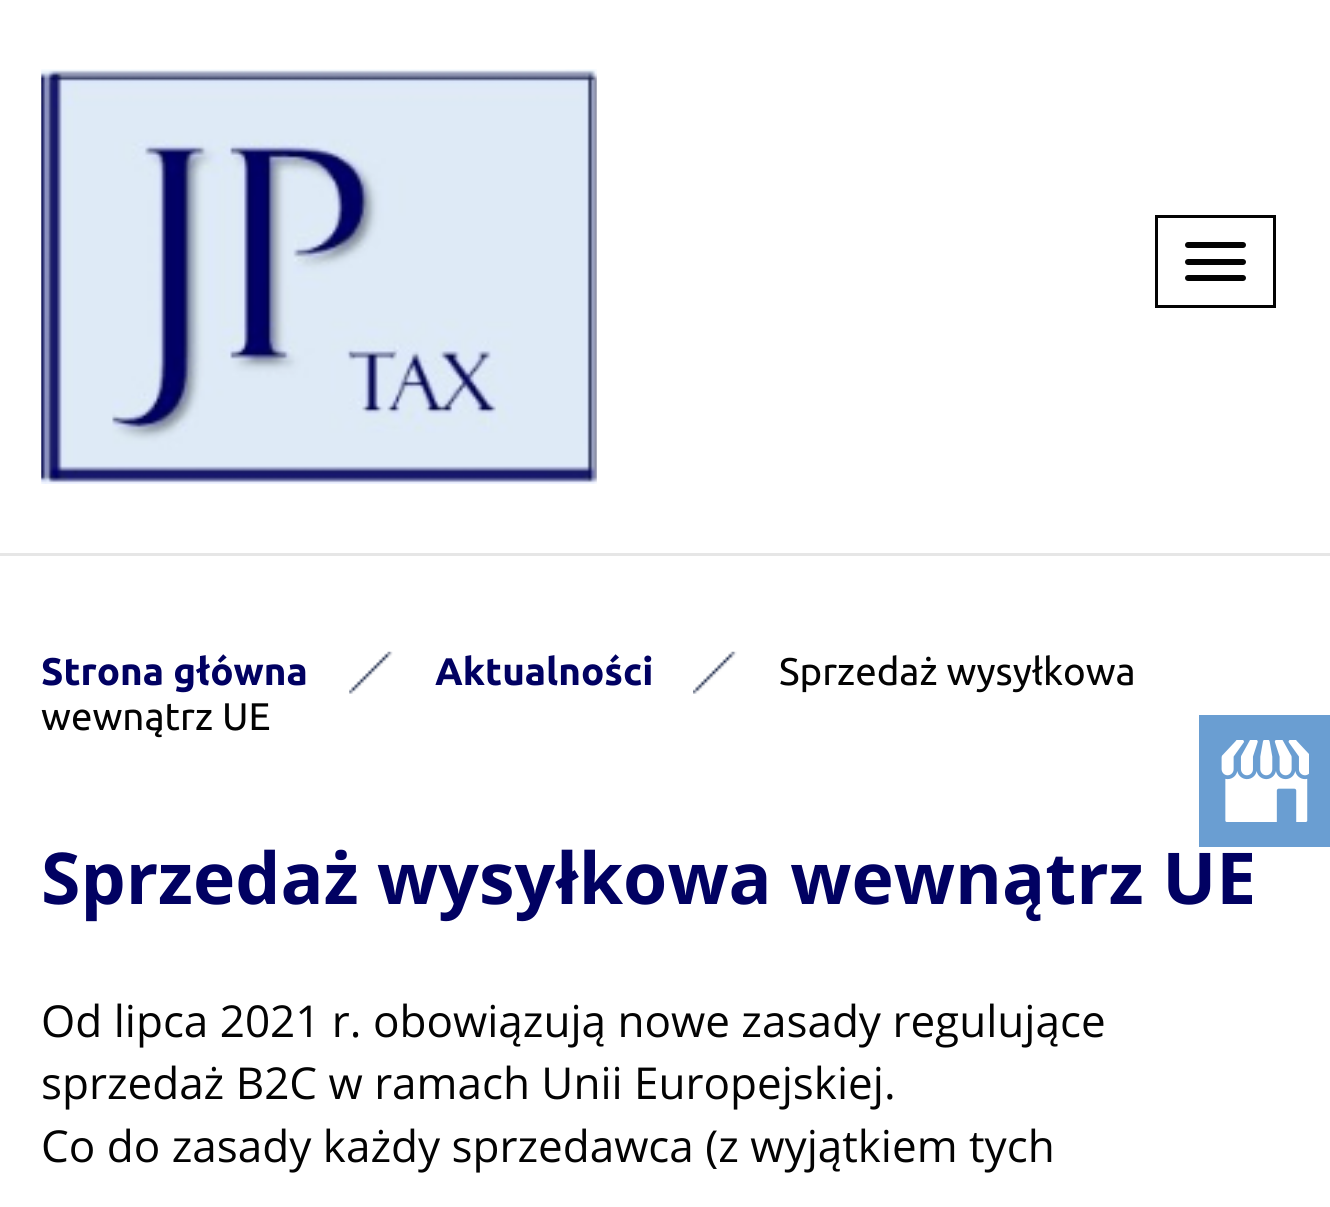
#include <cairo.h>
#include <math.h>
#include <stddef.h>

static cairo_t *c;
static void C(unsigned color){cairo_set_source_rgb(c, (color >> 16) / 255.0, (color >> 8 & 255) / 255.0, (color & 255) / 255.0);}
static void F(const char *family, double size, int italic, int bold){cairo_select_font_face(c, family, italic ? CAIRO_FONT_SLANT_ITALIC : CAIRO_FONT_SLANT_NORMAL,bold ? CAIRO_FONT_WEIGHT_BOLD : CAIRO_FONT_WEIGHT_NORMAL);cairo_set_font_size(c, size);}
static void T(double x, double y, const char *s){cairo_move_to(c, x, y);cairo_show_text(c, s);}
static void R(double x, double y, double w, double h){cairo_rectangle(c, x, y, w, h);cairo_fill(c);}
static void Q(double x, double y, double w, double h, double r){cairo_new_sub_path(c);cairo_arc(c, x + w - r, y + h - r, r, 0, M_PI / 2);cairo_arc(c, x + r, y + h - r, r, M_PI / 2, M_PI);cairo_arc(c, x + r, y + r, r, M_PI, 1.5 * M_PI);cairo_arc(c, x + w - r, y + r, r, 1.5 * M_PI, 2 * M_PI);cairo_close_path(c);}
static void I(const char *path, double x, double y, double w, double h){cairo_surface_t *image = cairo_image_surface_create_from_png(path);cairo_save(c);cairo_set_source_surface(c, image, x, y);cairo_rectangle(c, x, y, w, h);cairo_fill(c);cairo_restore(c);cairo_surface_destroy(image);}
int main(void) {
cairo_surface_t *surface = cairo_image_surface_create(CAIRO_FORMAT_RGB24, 1330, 1207);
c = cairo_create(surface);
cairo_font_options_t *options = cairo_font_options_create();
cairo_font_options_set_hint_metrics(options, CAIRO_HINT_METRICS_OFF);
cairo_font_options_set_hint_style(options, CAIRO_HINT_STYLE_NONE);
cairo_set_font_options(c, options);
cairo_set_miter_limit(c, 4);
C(0xffffff);
cairo_paint(c);
C(0xe6e6e6);
R(0,553,1330,3);
I("1.png",41,69,556,415);
cairo_rectangle(c,1156.5,216.5,118,90);
C(0x030303);
cairo_set_line_width(c,3);
cairo_stroke(c);
Q(1185,242,61,6,3);
cairo_fill(c);
Q(1185,259,61,6,3);
cairo_fill(c);
Q(1185,275,61,6,3);
cairo_fill(c);
F("Ubuntu",38.5,0,1);
C(0x010162);
T(41,685,"Strona główna");
I("2.png",349,651,44,43);
T(435,685,"Aktualności");
I("3.png",693,651,44,43);
F("Ubuntu",38.5,0,0);
C(0x030303);
T(779,685,"Sprzedaż wysyłkowa");
T(41,730,"wewnątrz UE");
F("Open Sans",71.5,0,1);
C(0x010162);
T(41,904,"Sprzedaż wysyłkowa wewnątrz UE");
F("Open Sans",44,0,0);
C(0x030303);
T(41,1037,"Od lipca 2021 r. obowiązują nowe zasady regulujące");
T(41,1099,"sprzedaż B2C w ramach Unii Europejskiej.");
T(41,1162,"Co do zasady każdy sprzedawca (z wyjątkiem tych");
C(0x6a9ed2);
R(1199,715,131,132);
I("4.png",1221,740,88,82);
cairo_surface_write_to_png(surface, "o.png");
cairo_font_options_destroy(options);
cairo_destroy(c);
cairo_surface_destroy(surface);
return 0;
}
